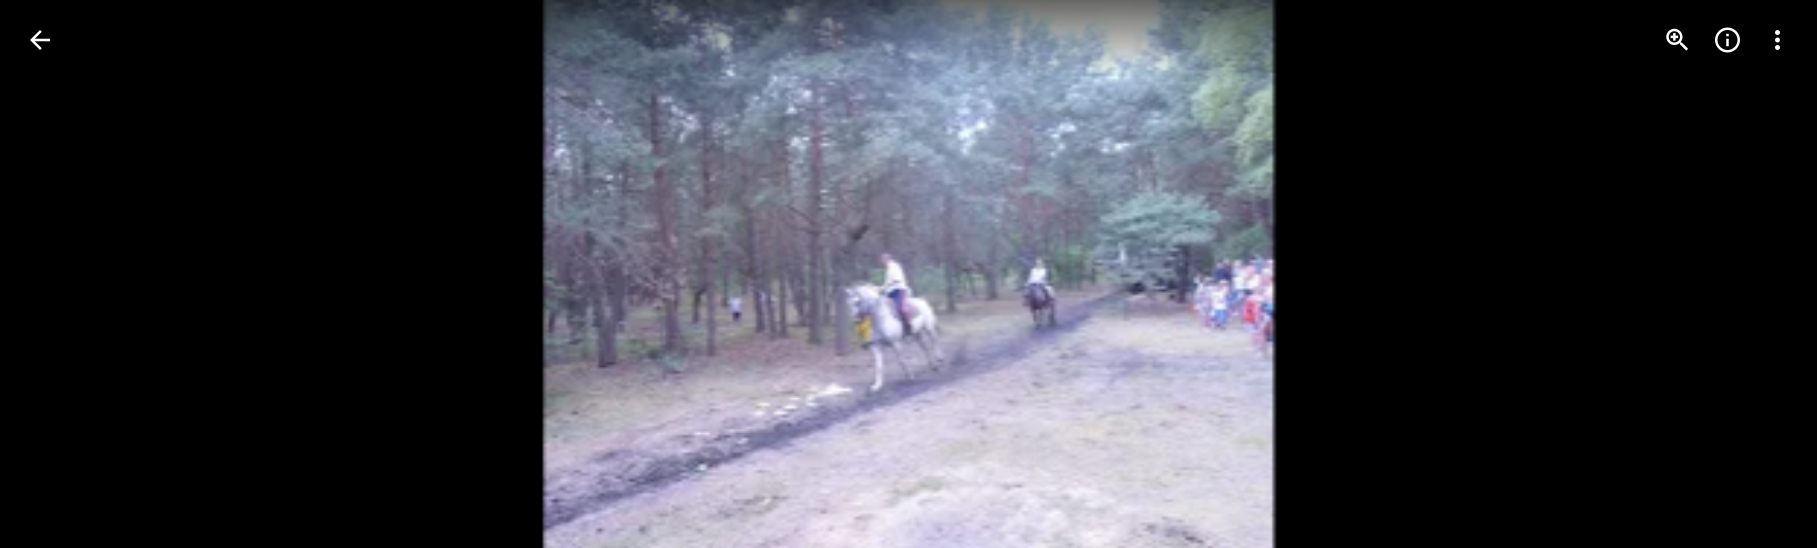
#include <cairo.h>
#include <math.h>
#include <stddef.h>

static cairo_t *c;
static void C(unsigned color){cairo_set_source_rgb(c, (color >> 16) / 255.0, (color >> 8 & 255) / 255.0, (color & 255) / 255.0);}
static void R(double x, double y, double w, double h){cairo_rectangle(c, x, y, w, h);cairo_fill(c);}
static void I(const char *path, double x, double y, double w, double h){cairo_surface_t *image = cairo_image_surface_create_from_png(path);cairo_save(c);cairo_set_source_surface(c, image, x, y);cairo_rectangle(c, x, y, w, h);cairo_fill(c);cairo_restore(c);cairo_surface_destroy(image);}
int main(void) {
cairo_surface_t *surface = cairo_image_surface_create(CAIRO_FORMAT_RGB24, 1817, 548);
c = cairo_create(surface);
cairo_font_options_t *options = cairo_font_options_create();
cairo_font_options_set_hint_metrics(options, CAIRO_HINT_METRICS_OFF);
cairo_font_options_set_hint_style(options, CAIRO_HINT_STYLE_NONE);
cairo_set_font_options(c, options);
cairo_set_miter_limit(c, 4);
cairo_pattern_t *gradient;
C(0x000000);
cairo_paint(c);
I("5.png",542,0,735,548);
gradient = cairo_pattern_create_linear(909,0,909,80);
cairo_pattern_add_color_stop_rgba(gradient,0,0,0,0,.6);
cairo_pattern_add_color_stop_rgba(gradient,1,0,0,0,0);
cairo_set_source(c,gradient);
cairo_pattern_destroy(gradient);
R(542,0,735,77);
I("1.png",30,30,20,20);
I("2.png",1666,28,22,23);
I("3.png",1715,27,25,26);
I("4.png",1775,30,5,20);
cairo_surface_write_to_png(surface, "o.png");
cairo_font_options_destroy(options);
cairo_destroy(c);
cairo_surface_destroy(surface);
return 0;
}
